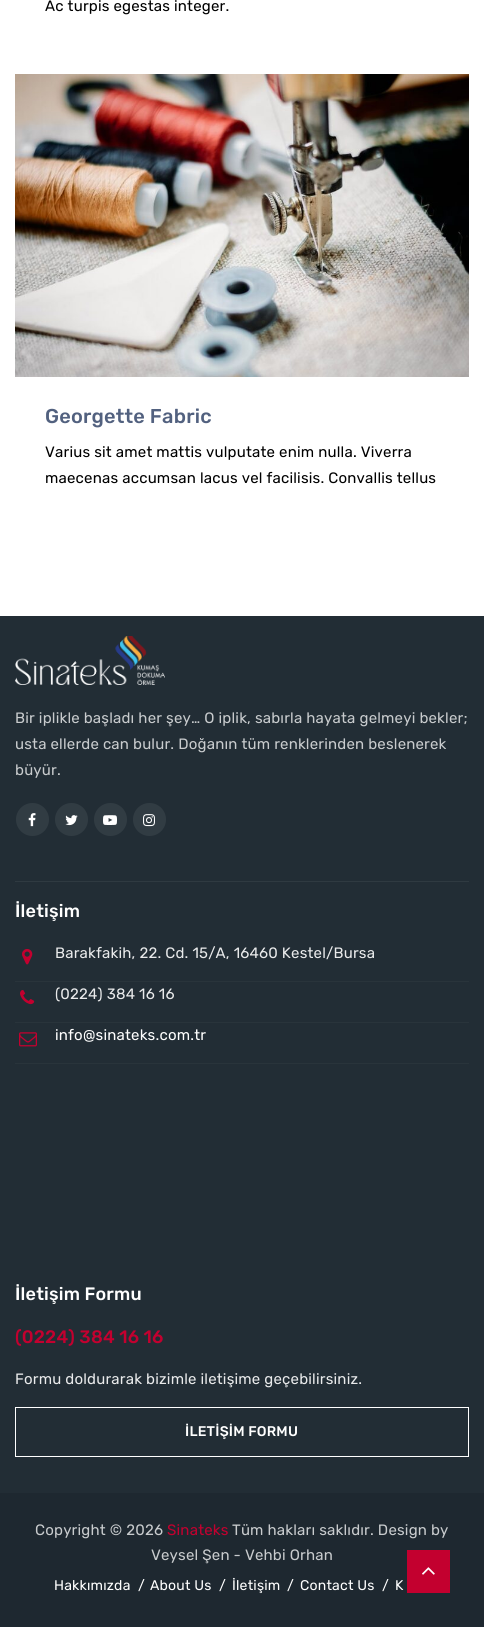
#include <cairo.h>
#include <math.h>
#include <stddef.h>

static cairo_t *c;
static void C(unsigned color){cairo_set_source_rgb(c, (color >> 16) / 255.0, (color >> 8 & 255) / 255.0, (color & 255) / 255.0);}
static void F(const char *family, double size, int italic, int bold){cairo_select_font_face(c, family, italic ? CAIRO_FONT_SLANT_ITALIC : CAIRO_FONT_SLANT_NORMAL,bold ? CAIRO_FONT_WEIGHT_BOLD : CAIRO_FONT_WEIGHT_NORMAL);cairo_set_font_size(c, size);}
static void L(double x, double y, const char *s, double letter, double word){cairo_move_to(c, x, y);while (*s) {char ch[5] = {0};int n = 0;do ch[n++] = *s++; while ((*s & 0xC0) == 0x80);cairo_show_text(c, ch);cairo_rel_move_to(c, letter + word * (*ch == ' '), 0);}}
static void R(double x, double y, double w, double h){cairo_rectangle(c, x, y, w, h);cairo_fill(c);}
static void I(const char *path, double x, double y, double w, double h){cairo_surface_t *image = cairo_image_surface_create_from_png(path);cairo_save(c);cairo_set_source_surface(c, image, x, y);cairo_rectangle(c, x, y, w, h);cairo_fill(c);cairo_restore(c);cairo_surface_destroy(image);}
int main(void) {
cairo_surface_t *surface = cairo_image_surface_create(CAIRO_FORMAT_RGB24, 484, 1627);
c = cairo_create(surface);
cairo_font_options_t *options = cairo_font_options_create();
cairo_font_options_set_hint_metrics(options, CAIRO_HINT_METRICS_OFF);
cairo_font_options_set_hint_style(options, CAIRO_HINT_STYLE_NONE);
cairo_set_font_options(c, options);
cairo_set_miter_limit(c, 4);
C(0xffffff);
cairo_paint(c);
F("Rubik",15,0,0);
C(0x000000);
L(45,11,"Ac turpis egestas integer.",.2,0);
I("1.png",15,74,454,303);
F("Rubik Medium",20,0,0);
C(0x52617f);
L(45,423,"Georgette Fabric",.2,0);
F("Rubik",15,0,0);
C(0x000000);
L(45,457,"Varius sit amet mattis vulputate enim nulla. Viverra",.2,0);
L(45,483,"maecenas accumsan lacus vel facilisis. Convallis tellus",.2,0);
C(0x222d35);
R(0,616,484,877);
I("2.png",15,636,150,49);
C(0xc8cbcd);
L(15,723,"Bir iplikle başladı her şey… O iplik, sabırla hayata gelmeyi bekler;",.2,0);
L(15,749,"usta ellerde can bulur. Doğanın tüm renklerinden beslenerek",.2,0);
L(15,775,"büyür.",.2,0);
C(0x313c43);
cairo_new_path(c);
cairo_arc(c,32.5,819.5,16.5,0,2 * M_PI);
cairo_fill(c);
I("3.png",28,813,8,14);
cairo_arc(c,71.5,819.5,16.5,0,2 * M_PI);
cairo_fill(c);
I("4.png",65,815,13,11);
cairo_arc(c,110.5,819.5,16.5,0,2 * M_PI);
cairo_fill(c);
I("5.png",103,815,14,10);
cairo_arc(c,149.5,819.5,16.5,0,2 * M_PI);
cairo_fill(c);
I("6.png",143,814,12,13);
C(0x2f3a41);
R(15,881,454,1);
F("Rubik Medium",18,0,0);
C(0xffffff);
L(15,917,"İletişim",.2,0);
C(0x29343b);
R(15,981,454,1);
I("7.png",22,949,11,16);
F("Rubik",15,0,0);
C(0xe9eaeb);
L(55,958,"Barakfakih, 22. Cd. 15/A, 16460 Kestel/Bursa",.2,0);
C(0x29343b);
R(15,1022,454,1);
I("8.png",20,990,15,15);
C(0xe9eaeb);
L(55,999,"(0224) 384 16 16",.2,0);
C(0x29343b);
R(15,1063,454,1);
I("9.png",19,1032,18,15);
C(0xffffff);
L(55,1040,"info@sinateks.com.tr",.2,0);
F("Rubik Medium",18,0,0);
L(15,1300,"İletişim Formu",.2,0);
C(0xc3002f);
L(15,1343,"(0224) 384 16 16",.2,0);
F("Rubik",15,0,0);
C(0xe9eaeb);
L(15,1384,"Formu doldurarak bizimle iletişime geçebilirsiniz.",.2,0);
cairo_rectangle(c,15.5,1407.5,453,49);
C(0xffffff);
cairo_set_line_width(c,1);
cairo_stroke(c);
F("Rubik Medium",14,0,0);
L(185,1436,"İLETİŞİM FORMU",.2,0);
C(0x1e2830);
R(0,1493,484,134);
F("Rubik",15,0,0);
C(0xc8cbcd);
L(35,1535,"Copyright © 2026",.2,0);
C(0xc3002f);
L(167,1535,"Sinateks",.2,0);
C(0xc8cbcd);
L(232,1535,"Tüm hakları saklıdır. Design by",.2,0);
L(151,1560,"Veysel Şen - Vehbi Orhan",.2,0);
F("Rubik",14,0,0);
C(0xffffff);
L(54,1590,"Hakkımızda",.2,0);
L(138,1590,"/",.2,0);
L(150,1590,"About Us",.2,0);
L(219,1590,"/",.2,0);
L(232,1590,"İletişim",.2,0);
L(287,1590,"/",.2,0);
L(300,1590,"Contact Us",.2,0);
L(382,1590,"/",.2,0);
L(395,1590,"K",.2,0);
C(0xc3002f);
R(407,1550,43,43);
I("10.png",422,1567,13,8);
cairo_surface_write_to_png(surface, "o.png");
cairo_font_options_destroy(options);
cairo_destroy(c);
cairo_surface_destroy(surface);
return 0;
}
